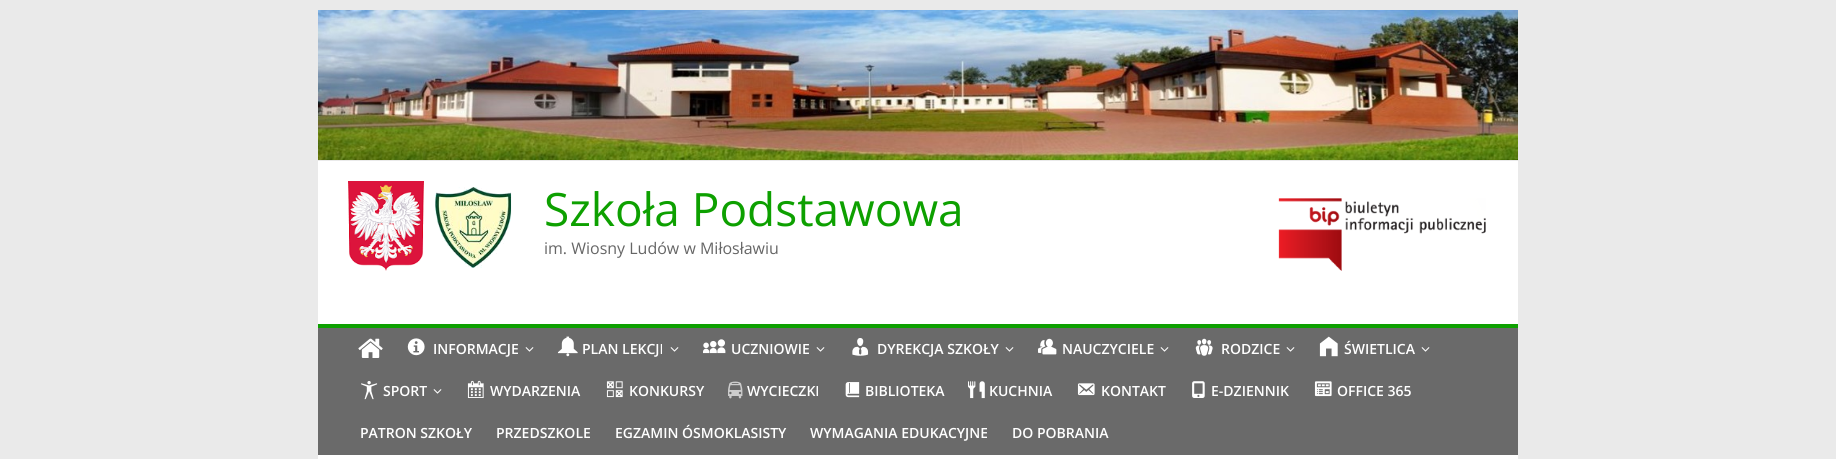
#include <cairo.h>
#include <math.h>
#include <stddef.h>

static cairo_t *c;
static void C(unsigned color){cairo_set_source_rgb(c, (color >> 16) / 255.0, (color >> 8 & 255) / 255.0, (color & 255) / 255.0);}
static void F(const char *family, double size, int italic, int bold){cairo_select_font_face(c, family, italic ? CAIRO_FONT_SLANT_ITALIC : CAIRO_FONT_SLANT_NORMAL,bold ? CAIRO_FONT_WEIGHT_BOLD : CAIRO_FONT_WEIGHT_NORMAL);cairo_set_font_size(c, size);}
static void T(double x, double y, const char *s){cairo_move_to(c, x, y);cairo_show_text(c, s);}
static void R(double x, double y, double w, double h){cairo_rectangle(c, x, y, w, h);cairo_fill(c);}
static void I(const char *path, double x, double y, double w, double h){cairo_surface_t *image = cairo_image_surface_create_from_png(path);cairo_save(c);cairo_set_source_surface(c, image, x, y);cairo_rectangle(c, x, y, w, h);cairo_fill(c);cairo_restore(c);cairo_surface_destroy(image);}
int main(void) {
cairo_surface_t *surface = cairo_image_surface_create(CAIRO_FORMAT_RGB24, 1836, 459);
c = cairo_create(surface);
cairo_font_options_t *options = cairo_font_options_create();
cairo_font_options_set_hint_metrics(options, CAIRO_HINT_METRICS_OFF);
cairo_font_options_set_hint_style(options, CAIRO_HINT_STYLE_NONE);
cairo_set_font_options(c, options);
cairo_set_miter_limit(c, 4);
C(0xeaeaea);
cairo_paint(c);
C(0xffffff);
R(318,161,1200,163);
I("1.png",318,10,1200,150);
I("2.png",348,181,164,90);
F("Open Sans",46,0,0);
C(0x0da000);
T(544,226,"Szkoła Podstawowa");
F("Open Sans",16,0,0);
C(0x666666);
T(544,254,"im. Wiosny Ludów w Miłosławiu");
I("3.png",1278,198,208,73);
C(0x6a6a6a);
R(318,328,1200,127);
C(0x0da000);
R(318,324,1200,4);
I("4.png",358,338,25,20);
I("5.png",407,338,18,18);
F("Open Sans SemiBold",14,0,0);
C(0xffffff);
T(433,354,"INFORMACJE");
I("6.png",525,347,9,5);
I("7.png",557,336,21,21);
T(582,354,"PLAN LEKCJI");
I("6.png",670,347,9,5);
I("8.png",703,339,23,15);
T(731,354,"UCZNIOWIE");
I("6.png",816,347,9,5);
I("9.png",852,338,17,18);
T(877,354,"DYREKCJA SZKOŁY");
I("6.png",1005,347,9,5);
I("10.png",1038,338,19,17);
T(1062,354,"NAUCZYCIELE");
I("6.png",1160,347,9,5);
I("11.png",1195,338,18,18);
T(1221,354,"RODZICE");
I("6.png",1286,347,9,5);
I("12.png",1319,336,19,21);
T(1344,354,"ŚWIETLICA");
I("6.png",1421,347,9,5);
I("13.png",361,381,17,19);
T(383,396,"SPORT");
I("6.png",433,389,9,5);
I("14.png",467,380,17,18);
T(490,396,"WYDARZENIA");
I("15.png",606,381,17,17);
T(629,396,"KONKURSY");
I("16.png",728,381,15,18);
T(747,396,"WYCIECZKI");
I("17.png",845,382,15,16);
T(865,396,"BIBLIOTEKA");
I("18.png",968,381,17,18);
T(989,396,"KUCHNIA");
I("19.png",1077,383,18,13);
T(1101,396,"KONTAKT");
I("20.png",1192,381,13,17);
T(1211,396,"E-DZIENNIK");
I("21.png",1314,381,18,16);
T(1337,396,"OFFICE 365");
T(360,438,"PATRON SZKOŁY");
T(496,438,"PRZEDSZKOLE");
T(615,438,"EGZAMIN ÓSMOKLASISTY");
T(810,438,"WYMAGANIA EDUKACYJNE");
T(1012,438,"DO POBRANIA");
R(318,455,1200,4);
cairo_surface_write_to_png(surface, "o.png");
cairo_font_options_destroy(options);
cairo_destroy(c);
cairo_surface_destroy(surface);
return 0;
}
